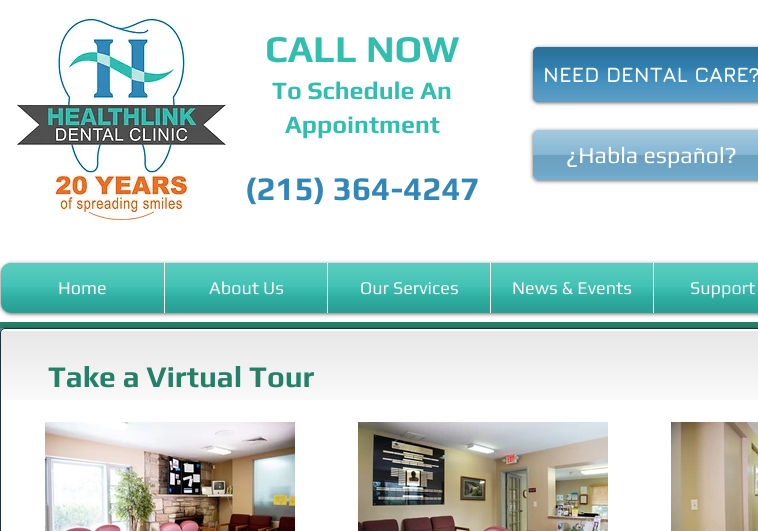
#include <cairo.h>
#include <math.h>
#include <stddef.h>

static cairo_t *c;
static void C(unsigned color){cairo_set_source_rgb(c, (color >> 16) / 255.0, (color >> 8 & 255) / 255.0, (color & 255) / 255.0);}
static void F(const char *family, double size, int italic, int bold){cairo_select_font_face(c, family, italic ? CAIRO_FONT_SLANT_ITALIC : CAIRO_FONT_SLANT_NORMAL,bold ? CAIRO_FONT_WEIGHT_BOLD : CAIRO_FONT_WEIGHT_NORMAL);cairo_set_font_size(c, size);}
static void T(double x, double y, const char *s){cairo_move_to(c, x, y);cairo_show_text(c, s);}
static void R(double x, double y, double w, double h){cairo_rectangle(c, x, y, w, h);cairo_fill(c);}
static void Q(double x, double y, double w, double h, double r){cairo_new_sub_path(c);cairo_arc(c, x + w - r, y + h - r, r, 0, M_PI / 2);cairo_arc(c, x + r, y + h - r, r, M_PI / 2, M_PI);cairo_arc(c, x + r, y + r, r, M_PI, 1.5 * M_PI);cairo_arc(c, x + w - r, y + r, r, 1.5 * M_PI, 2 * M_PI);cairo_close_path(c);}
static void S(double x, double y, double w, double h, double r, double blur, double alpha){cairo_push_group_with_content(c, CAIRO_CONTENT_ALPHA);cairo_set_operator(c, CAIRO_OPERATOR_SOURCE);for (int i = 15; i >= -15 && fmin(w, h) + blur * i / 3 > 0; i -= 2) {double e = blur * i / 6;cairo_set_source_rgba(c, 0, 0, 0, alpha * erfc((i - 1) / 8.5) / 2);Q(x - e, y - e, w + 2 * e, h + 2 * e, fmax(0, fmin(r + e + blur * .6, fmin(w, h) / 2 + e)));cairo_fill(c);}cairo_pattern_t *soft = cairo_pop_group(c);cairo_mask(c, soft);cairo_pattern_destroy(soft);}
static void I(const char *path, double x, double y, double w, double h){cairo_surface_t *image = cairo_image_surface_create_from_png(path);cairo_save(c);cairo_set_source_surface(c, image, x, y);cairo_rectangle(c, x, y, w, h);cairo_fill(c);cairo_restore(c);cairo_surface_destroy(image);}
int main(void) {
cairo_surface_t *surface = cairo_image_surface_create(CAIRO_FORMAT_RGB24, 758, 531);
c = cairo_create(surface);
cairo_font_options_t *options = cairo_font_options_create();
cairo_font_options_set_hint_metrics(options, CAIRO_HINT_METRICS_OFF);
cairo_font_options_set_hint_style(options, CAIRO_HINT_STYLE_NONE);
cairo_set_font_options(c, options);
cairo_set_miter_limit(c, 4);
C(0x5e88b2);
cairo_paint(c);
C(0xffffff);
R(0,0,758,322);
C(0x248067);
R(0,322,758,6);
I("1.png",16,16,211,208);
F("Play",38,0,1);
C(0x32beaf);
T(265,62,"CALL NOW");
F("Play",25,0,1);
T(272,99,"To Schedule An");
T(285,133,"Appointment");
F("Play",33,0,1);
C(0x3386b8);
T(245,200,"(215) 364-4247");
C(0x000000);
S(533,48,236,55,5,2,.6);
C(0x3386b8);
Q(533,47,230,55,5);
cairo_fill(c);
I("2.png",533,47,225,26);
I("3.png",533,69,225,33);
F("Jura",21,0,1);
C(0xffffff);
T(543,82,"NEED DENTAL CARE?");
cairo_save(c);
cairo_set_fill_rule(c,CAIRO_FILL_RULE_EVEN_ODD);
cairo_new_path(c);
cairo_move_to(c,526,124);
cairo_line_to(c,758,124);
cairo_line_to(c,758,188);
cairo_line_to(c,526,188);
cairo_close_path(c);
cairo_move_to(c,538,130);
cairo_line_to(c,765,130);
cairo_curve_to(c,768,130,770,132,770,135);
cairo_line_to(c,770,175);
cairo_curve_to(c,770,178,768,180,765,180);
cairo_line_to(c,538,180);
cairo_curve_to(c,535,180,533,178,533,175);
cairo_line_to(c,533,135);
cairo_curve_to(c,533,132,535,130,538,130);
cairo_close_path(c);
cairo_clip(c);
C(0x000000);
S(533,131,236,50,5,2,.6);
cairo_restore(c);
cairo_set_source_rgba(c,0.2,0.525,0.722,0.68);
Q(533,130,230,50,5);
cairo_fill(c);
I("4.png",533,130,225,46);
F("Play",23,0,0);
C(0xffffff);
T(566,163,"¿Habla español?");
C(0x000000);
S(1,264,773,50,10,2,.6);
I("5.png",1,263,10,10);
I("6.png",1,303,10,10);
C(0x32beaf);
cairo_new_path(c);
cairo_move_to(c,11,263);
cairo_line_to(c,164,263);
cairo_line_to(c,164,313);
cairo_line_to(c,11,313);
cairo_curve_to(c,5.5,313,1,308.5,1,303);
cairo_line_to(c,1,273);
cairo_curve_to(c,1,267.5,5.5,263,11,263);
cairo_close_path(c);
cairo_fill(c);
F("Play",18,0,0);
C(0xffffff);
T(58,294,"Home");
I("7.png",1,263,163,33);
I("8.png",1,287,163,26);
C(0x32beaf);
R(165,263,162,50);
C(0xffffff);
R(164,263,1,50);
T(209,294,"About Us");
I("9.png",165,263,162,33);
I("10.png",165,287,162,26);
C(0x32beaf);
R(328,263,162,50);
C(0xffffff);
R(327,263,1,50);
T(360,294,"Our Services");
I("11.png",328,263,162,33);
I("12.png",328,287,162,26);
C(0x32beaf);
R(491,263,162,50);
C(0xffffff);
R(490,263,1,50);
T(512,294,"News & Events");
I("13.png",491,263,162,33);
I("14.png",491,287,162,26);
C(0x32beaf);
R(654,263,104,50);
C(0xffffff);
R(653,263,1,50);
T(690,294,"Support");
I("15.png",654,263,104,33);
I("16.png",654,287,104,26);
C(0x000000);
S(0,329,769,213,5,2,.6);
C(0xffffff);
Q(0,328,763,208,5);
cairo_fill(c);
I("17.png",0,331,758,69);
Q(.5,328.5,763,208,4.5);
C(0x1f2d3c);
cairo_set_line_width(c,1);
cairo_stroke(c);
F("Play",30,0,1);
C(0x248067);
T(48,387,"Take a Virtual Tour");
I("18.png",45,422,250,109);
I("19.png",358,422,250,109);
I("20.png",671,422,87,109);
cairo_surface_write_to_png(surface, "o.png");
cairo_font_options_destroy(options);
cairo_destroy(c);
cairo_surface_destroy(surface);
return 0;
}
